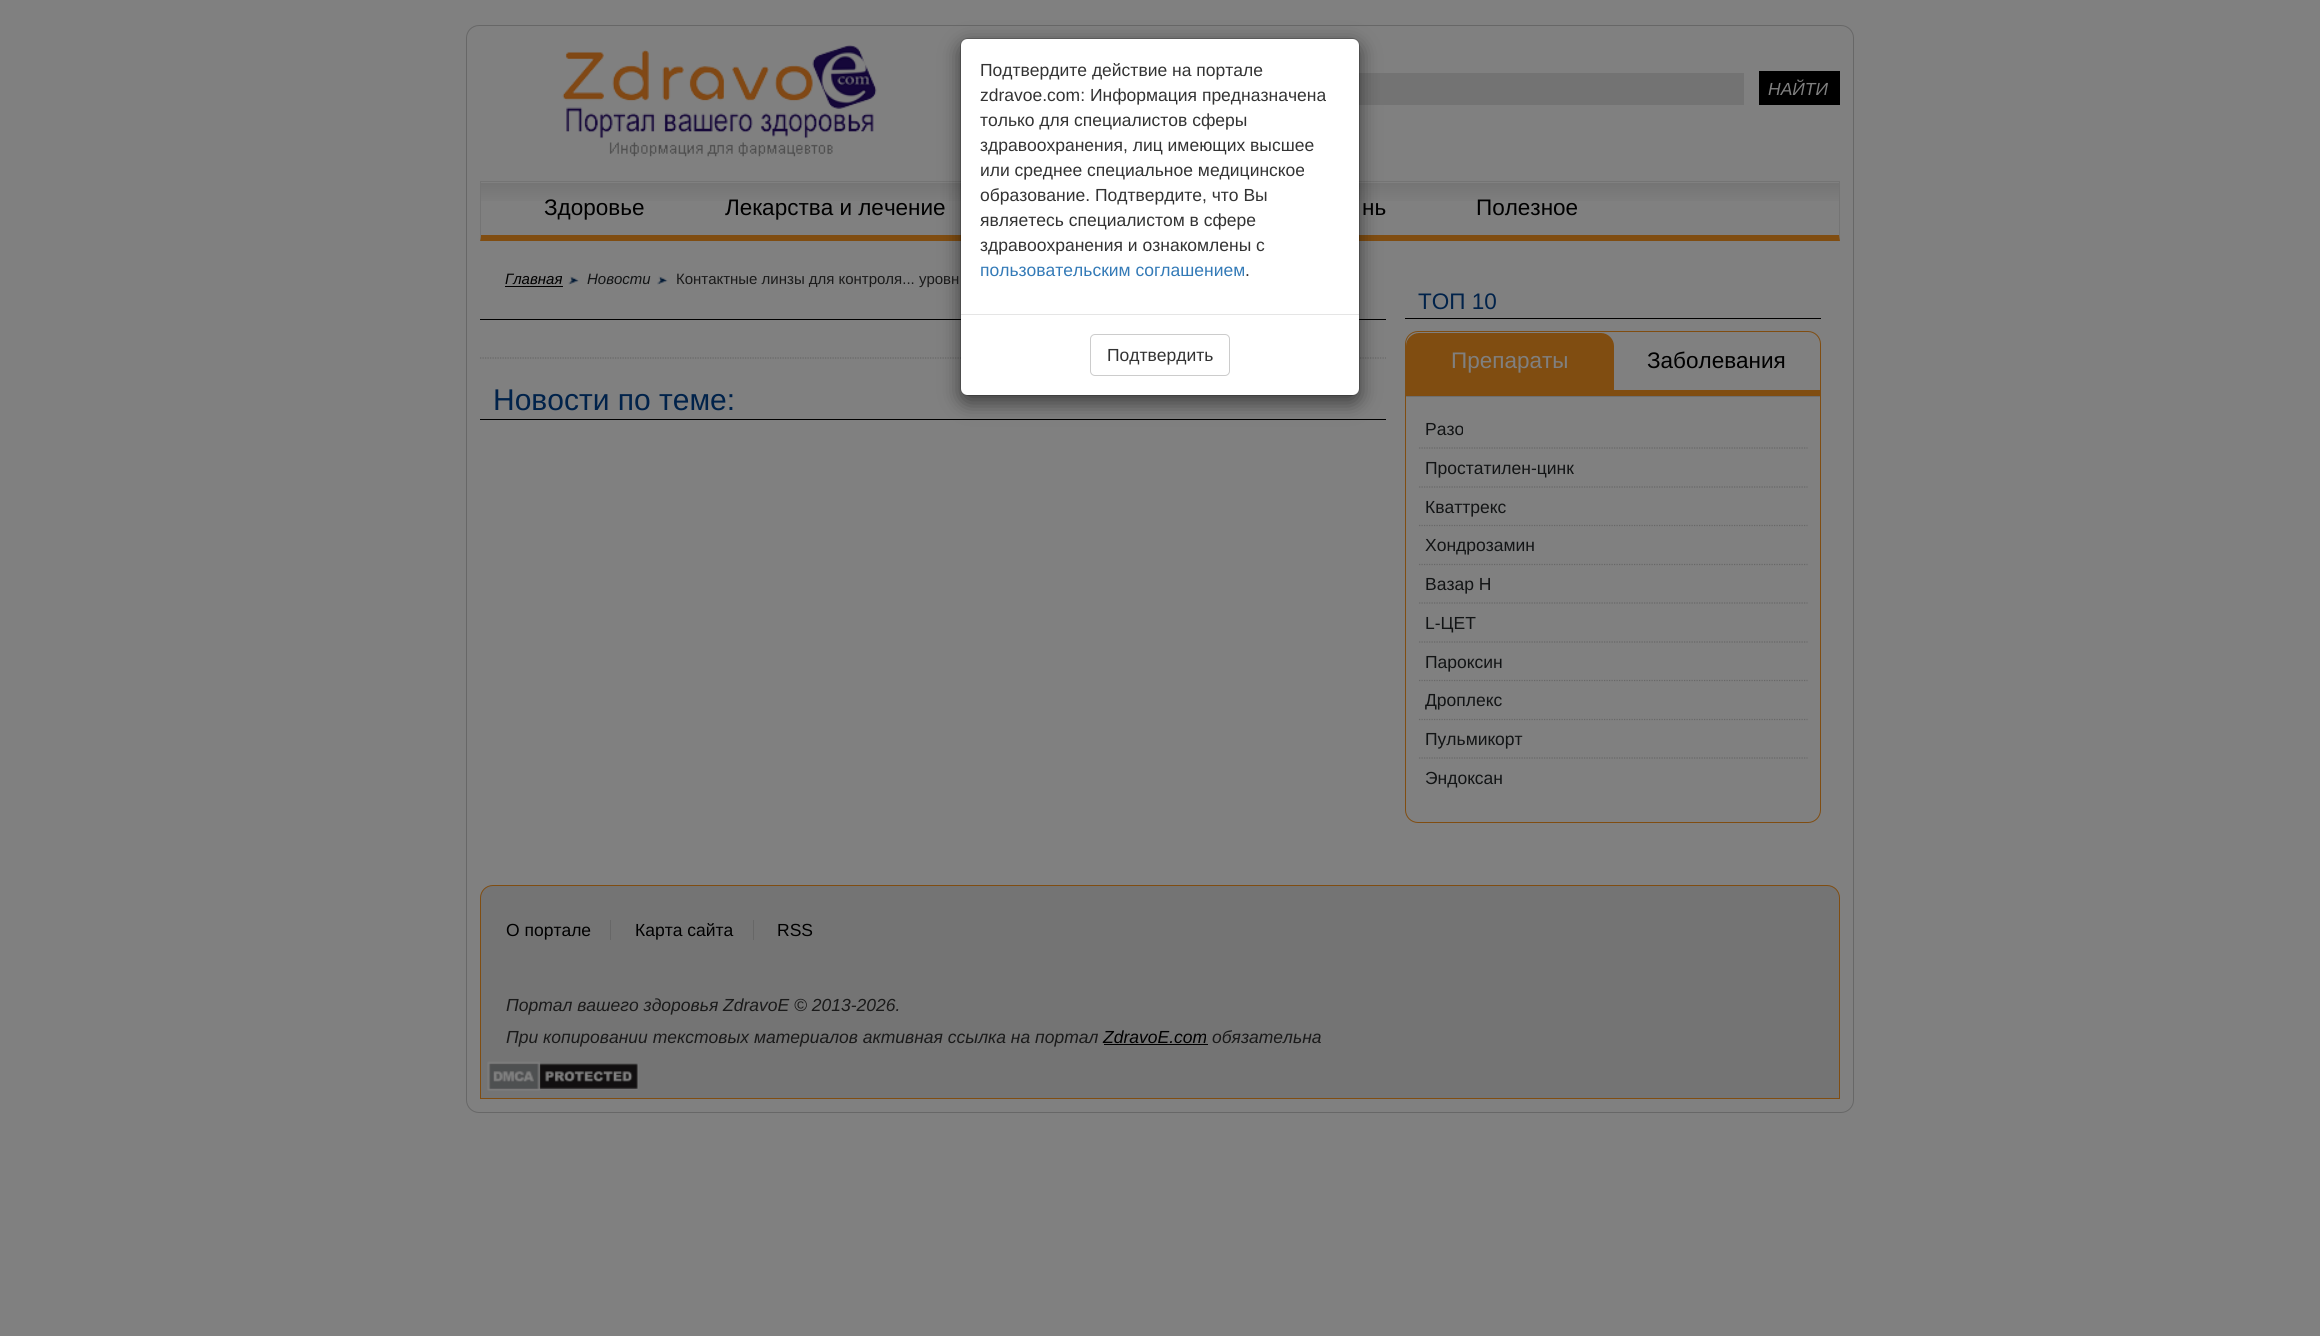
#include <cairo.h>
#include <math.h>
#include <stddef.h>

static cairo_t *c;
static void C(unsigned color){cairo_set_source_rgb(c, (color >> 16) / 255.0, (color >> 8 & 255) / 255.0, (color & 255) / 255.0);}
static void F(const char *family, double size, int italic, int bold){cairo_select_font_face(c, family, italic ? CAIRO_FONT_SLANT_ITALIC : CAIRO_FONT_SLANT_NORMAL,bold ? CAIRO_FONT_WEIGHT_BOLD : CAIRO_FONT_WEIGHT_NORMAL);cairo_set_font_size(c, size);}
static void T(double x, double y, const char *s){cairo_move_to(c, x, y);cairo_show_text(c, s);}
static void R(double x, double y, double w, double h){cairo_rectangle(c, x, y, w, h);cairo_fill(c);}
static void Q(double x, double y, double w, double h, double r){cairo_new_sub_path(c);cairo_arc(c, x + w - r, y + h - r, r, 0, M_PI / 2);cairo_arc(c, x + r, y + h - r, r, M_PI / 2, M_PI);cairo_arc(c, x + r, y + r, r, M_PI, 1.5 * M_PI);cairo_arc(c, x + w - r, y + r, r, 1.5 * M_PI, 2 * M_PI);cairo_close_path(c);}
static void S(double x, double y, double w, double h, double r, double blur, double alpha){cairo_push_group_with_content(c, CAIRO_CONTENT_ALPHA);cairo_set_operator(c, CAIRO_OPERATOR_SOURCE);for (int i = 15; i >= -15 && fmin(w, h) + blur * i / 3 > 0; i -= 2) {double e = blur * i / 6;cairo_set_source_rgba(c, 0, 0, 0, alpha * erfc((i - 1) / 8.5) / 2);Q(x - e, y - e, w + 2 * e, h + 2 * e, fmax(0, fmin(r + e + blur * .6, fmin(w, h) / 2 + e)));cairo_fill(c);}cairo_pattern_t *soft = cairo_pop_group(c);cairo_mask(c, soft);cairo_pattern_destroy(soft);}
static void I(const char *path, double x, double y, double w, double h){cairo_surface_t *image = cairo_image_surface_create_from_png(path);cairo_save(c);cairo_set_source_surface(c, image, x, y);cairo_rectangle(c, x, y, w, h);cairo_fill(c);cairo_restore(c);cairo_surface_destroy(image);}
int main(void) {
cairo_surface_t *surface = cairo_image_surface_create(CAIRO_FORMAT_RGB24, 2320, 1336);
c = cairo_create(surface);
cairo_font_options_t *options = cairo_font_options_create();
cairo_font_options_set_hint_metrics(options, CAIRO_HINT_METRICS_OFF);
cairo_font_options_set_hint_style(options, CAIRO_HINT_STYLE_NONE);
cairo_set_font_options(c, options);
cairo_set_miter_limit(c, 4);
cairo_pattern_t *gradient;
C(0x808080);
cairo_paint(c);
Q(466.5,25.5,1387,1087,12.5);
C(0x676767);
cairo_set_line_width(c,1);
cairo_stroke(c);
C(0x737373);
R(1359,73,385,32);
gradient = cairo_pattern_create_linear(1160,182,1160,235);
cairo_pattern_add_color_stop_rgba(gradient,0,0.455,0.455,0.455,1);
cairo_pattern_add_color_stop_rgba(gradient,.45,0.502,0.502,0.502,1);
cairo_set_source(c,gradient);
cairo_pattern_destroy(gradient);
R(481,183,1358,18);
C(0x747474);
R(480,181,1360,1);
cairo_new_path(c);
cairo_move_to(c,1840,181);
cairo_line_to(c,1840,241);
cairo_line_to(c,1839,235);
cairo_line_to(c,1839,182);
cairo_close_path(c);
cairo_fill(c);
C(0x804d11);
cairo_new_path(c);
cairo_move_to(c,1840,241);
cairo_line_to(c,480,241);
cairo_line_to(c,481,235);
cairo_line_to(c,1839,235);
cairo_close_path(c);
cairo_fill(c);
cairo_new_path(c);
cairo_move_to(c,480,358);
cairo_line_to(c,1386,358);
C(0x676767);
cairo_set_line_width(c,1.2);
cairo_set_dash(c,(double[]){1.25,1.25},2,0);
cairo_stroke(c);
C(0x000000);
R(480,319,906,1);
R(480,419,906,1);
C(0x000000);
S(960,44,400,359,8,9.5,.5);
C(0xffffff);
Q(961,39,398,356,6);
cairo_fill(c);
Q(960.5,38.5,399,357,7.5);
cairo_set_source_rgba(c,0,0,0,0.2);
cairo_set_line_width(c,1);
cairo_set_dash(c,NULL,0,0);
cairo_stroke(c);
F("Liberation Sans",17.5,0,0);
C(0x333333);
T(980,76,"Подтвердите действие на портале");
T(980,101,"zdravoe.com: Информация предназначена");
T(980,126,"только для специалистов сферы");
T(980,151,"здравоохранения, лиц имеющих высшее");
T(980,176,"или среднее специальное медицинское");
T(980,201,"образование. Подтвердите, что Вы");
T(980,226,"являетесь специалистом в сфере");
T(980,251,"здравоохранения и ознакомлены с");
C(0x337ab7);
T(980,276,"пользовательским соглашением");
C(0x333333);
T(1245,276,".");
C(0xe5e5e5);
R(961,314,398,1);
Q(1090.5,334.5,139,41,4.5);
C(0xcccccc);
cairo_stroke(c);
C(0x333333);
T(1107,361,"Подтвердить");
I("1.png",562,45,315,112);
C(0x000000);
R(1759,71,81,34);
F("Liberation Sans",17.5,1,0);
C(0x808080);
T(1768,95,"НАЙТИ");
C(0x747474);
cairo_new_path(c);
cairo_move_to(c,480,241);
cairo_line_to(c,480,181);
cairo_line_to(c,481,182);
cairo_line_to(c,481,235);
cairo_close_path(c);
cairo_fill(c);
F("Liberation Sans",22.5,0,0);
C(0x000000);
T(544,215,"Здоровье");
T(725,215,"Лекарства и лечение");
T(1362,215,"нь");
T(1476,215,"Полезное");
F("Liberation Sans",15,1,0);
T(505,284,"Главная");
R(505,286,58,1);
I("2.png",568,276,11,9);
C(0x121415);
T(587,284,"Новости");
I("3.png",657,276,11,9);
F("Liberation Sans",15,0,0);
C(0x1a1a1a);
T(676,284,"Контактные линзы для контроля... уровн");
F("Liberation Sans",30,0,0);
C(0x00224a);
T(493,410,"Новости по теме:");
C(0x000000);
R(1405,318,416,1);
F("Liberation Sans",22.5,0,0);
C(0x00224a);
T(1418,309,"ТОП 10");
Q(1405.5,331.5,415,491,12.5);
C(0x804d11);
cairo_stroke(c);
C(0x6f6f6f);
R(1406,396,414,1);
C(0x804d11);
R(1406,390,414,6);
cairo_new_path(c);
cairo_move_to(c,1419,333);
cairo_line_to(c,1601,333);
cairo_curve_to(c,1608,333,1614,339,1614,346);
cairo_line_to(c,1614,390);
cairo_line_to(c,1406,390);
cairo_line_to(c,1406,346);
cairo_curve_to(c,1406,339,1412,333,1419,333);
cairo_close_path(c);
cairo_fill(c);
C(0x808080);
T(1451,368,"Препараты");
C(0x000000);
T(1647,368,"Заболевания");
F("Liberation Sans",17.5,0,0);
C(0x121415);
T(1425,435,"Разо");
cairo_new_path(c);
cairo_move_to(c,1419,448);
cairo_line_to(c,1807.5,448);
C(0x676767);
cairo_set_line_width(c,1.2);
cairo_set_dash(c,(double[]){1.25,1.25},2,0);
cairo_stroke(c);
C(0x121415);
T(1425,474,"Простатилен-цинк");
cairo_new_path(c);
cairo_move_to(c,1419,487);
cairo_line_to(c,1807.5,487);
C(0x676767);
cairo_stroke(c);
C(0x121415);
T(1425,513,"Кваттрекс");
cairo_new_path(c);
cairo_move_to(c,1419,525.5);
cairo_line_to(c,1807.5,525.5);
C(0x676767);
cairo_stroke(c);
C(0x121415);
T(1425,551,"Хондрозамин");
cairo_new_path(c);
cairo_move_to(c,1419,564.5);
cairo_line_to(c,1807.5,564.5);
C(0x676767);
cairo_stroke(c);
C(0x121415);
T(1425,590,"Вазар Н");
cairo_new_path(c);
cairo_move_to(c,1419,603);
cairo_line_to(c,1807.5,603);
C(0x676767);
cairo_stroke(c);
C(0x121415);
T(1425,629,"L-ЦЕТ");
cairo_new_path(c);
cairo_move_to(c,1419,642);
cairo_line_to(c,1807.5,642);
C(0x676767);
cairo_stroke(c);
C(0x121415);
T(1425,668,"Пароксин");
cairo_new_path(c);
cairo_move_to(c,1419,680.5);
cairo_line_to(c,1807.5,680.5);
C(0x676767);
cairo_stroke(c);
C(0x121415);
T(1425,706,"Дроплекс");
cairo_new_path(c);
cairo_move_to(c,1419,719.5);
cairo_line_to(c,1807.5,719.5);
C(0x676767);
cairo_stroke(c);
C(0x121415);
T(1425,745,"Пульмикорт");
cairo_new_path(c);
cairo_move_to(c,1419,758);
cairo_line_to(c,1807.5,758);
C(0x676767);
cairo_stroke(c);
C(0x121415);
T(1425,784,"Эндоксан");
C(0x747474);
cairo_new_path(c);
cairo_move_to(c,493,885.5);
cairo_line_to(c,1827,885.5);
cairo_curve_to(c,1834,885.5,1839.5,891,1839.5,898);
cairo_line_to(c,1839.5,1098.5);
cairo_line_to(c,480.5,1098.5);
cairo_line_to(c,480.5,898);
cairo_curve_to(c,480.5,891,486,885.5,493,885.5);
cairo_close_path(c);
cairo_fill_preserve(c);
C(0x804d11);
cairo_set_line_width(c,1);
cairo_set_dash(c,NULL,0,0);
cairo_stroke(c);
C(0x000000);
T(506,936,"О портале");
C(0x676767);
R(610,920,1,20);
C(0x000000);
T(635,936,"Карта сайта");
C(0x676767);
R(753,920,1,20);
C(0x000000);
T(777,936,"RSS");
F("Liberation Sans",17.5,1,0);
C(0x1a1a1a);
T(506,1011,"Портал вашего здоровья ZdravoE © 2013-2026.");
T(506,1043,"При копировании текстовых материалов активная ссылка на портал");
C(0x000000);
T(1103,1043,"ZdravoE.com");
R(1104,1044,104,1);
C(0x1a1a1a);
T(1212,1043,"обязательна");
I("4.png",487,1061,152,30);
cairo_surface_write_to_png(surface, "o.png");
cairo_font_options_destroy(options);
cairo_destroy(c);
cairo_surface_destroy(surface);
return 0;
}
